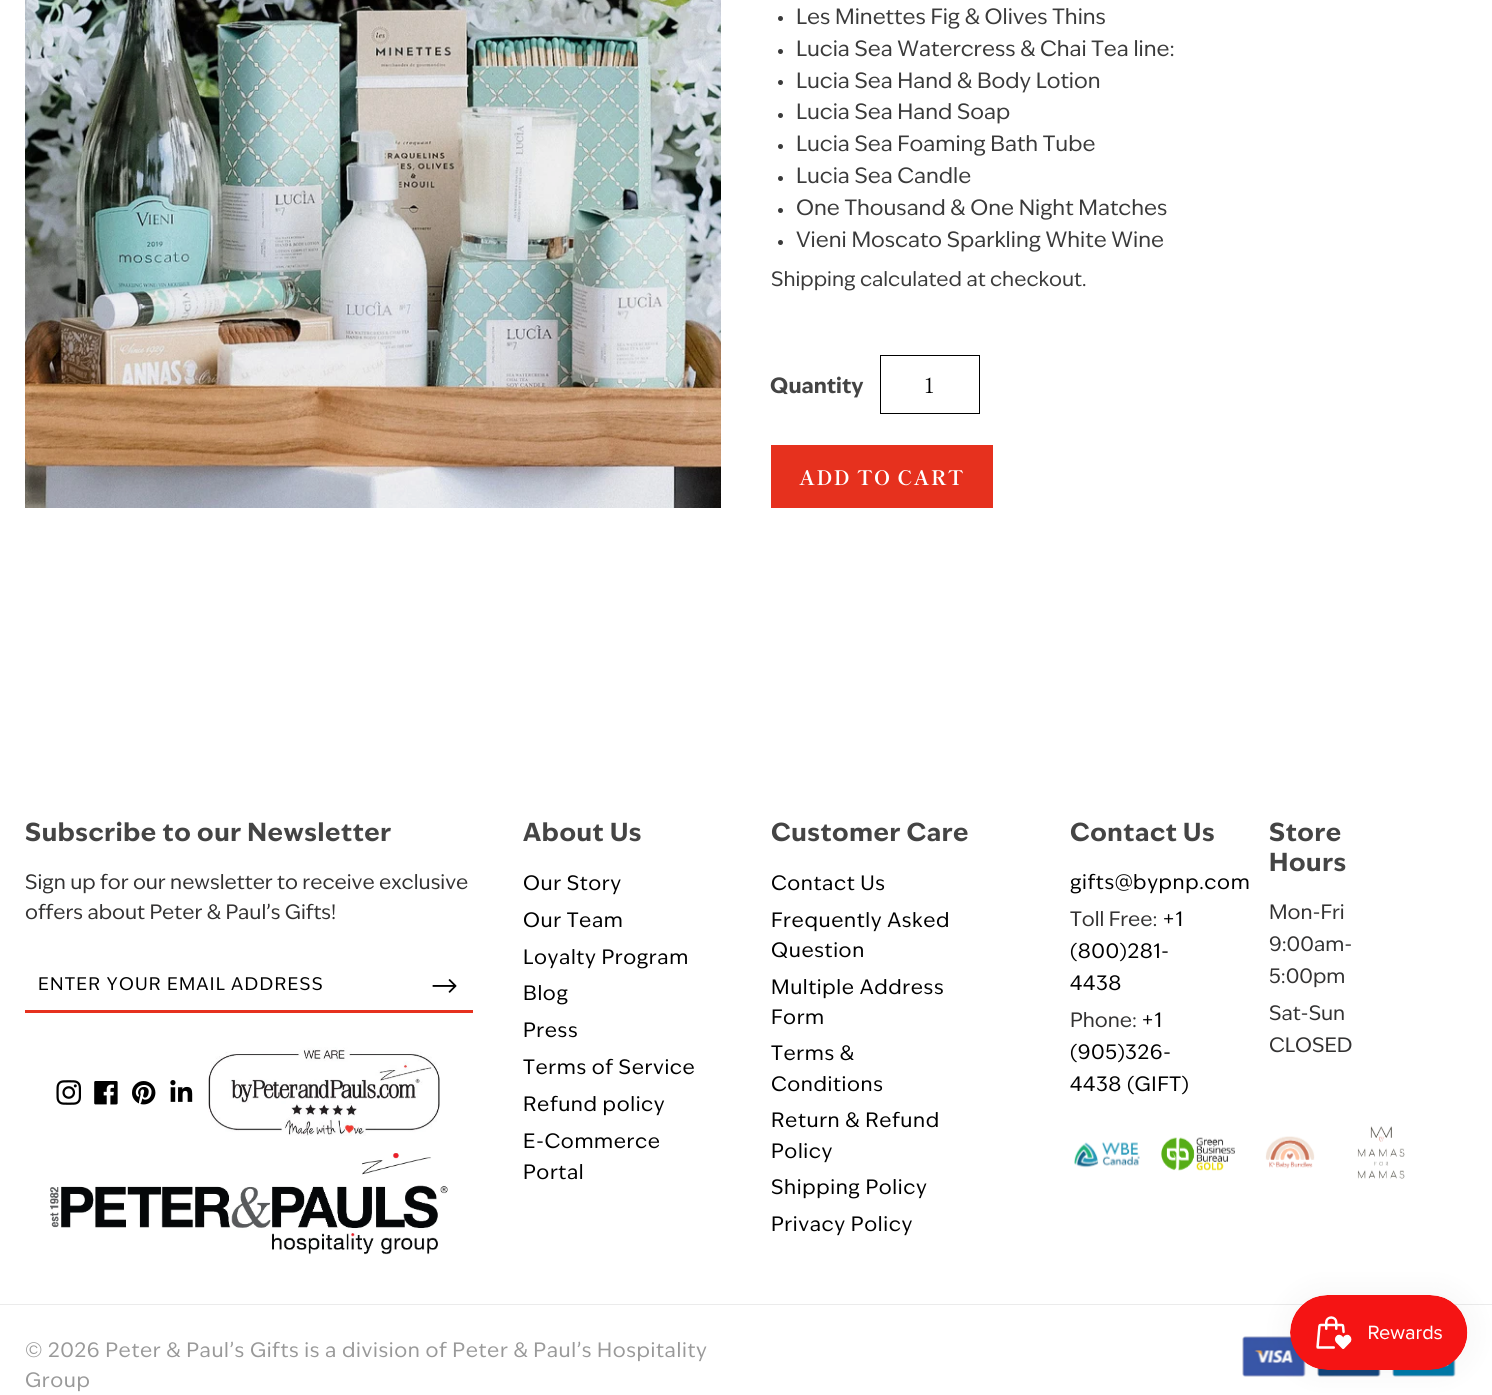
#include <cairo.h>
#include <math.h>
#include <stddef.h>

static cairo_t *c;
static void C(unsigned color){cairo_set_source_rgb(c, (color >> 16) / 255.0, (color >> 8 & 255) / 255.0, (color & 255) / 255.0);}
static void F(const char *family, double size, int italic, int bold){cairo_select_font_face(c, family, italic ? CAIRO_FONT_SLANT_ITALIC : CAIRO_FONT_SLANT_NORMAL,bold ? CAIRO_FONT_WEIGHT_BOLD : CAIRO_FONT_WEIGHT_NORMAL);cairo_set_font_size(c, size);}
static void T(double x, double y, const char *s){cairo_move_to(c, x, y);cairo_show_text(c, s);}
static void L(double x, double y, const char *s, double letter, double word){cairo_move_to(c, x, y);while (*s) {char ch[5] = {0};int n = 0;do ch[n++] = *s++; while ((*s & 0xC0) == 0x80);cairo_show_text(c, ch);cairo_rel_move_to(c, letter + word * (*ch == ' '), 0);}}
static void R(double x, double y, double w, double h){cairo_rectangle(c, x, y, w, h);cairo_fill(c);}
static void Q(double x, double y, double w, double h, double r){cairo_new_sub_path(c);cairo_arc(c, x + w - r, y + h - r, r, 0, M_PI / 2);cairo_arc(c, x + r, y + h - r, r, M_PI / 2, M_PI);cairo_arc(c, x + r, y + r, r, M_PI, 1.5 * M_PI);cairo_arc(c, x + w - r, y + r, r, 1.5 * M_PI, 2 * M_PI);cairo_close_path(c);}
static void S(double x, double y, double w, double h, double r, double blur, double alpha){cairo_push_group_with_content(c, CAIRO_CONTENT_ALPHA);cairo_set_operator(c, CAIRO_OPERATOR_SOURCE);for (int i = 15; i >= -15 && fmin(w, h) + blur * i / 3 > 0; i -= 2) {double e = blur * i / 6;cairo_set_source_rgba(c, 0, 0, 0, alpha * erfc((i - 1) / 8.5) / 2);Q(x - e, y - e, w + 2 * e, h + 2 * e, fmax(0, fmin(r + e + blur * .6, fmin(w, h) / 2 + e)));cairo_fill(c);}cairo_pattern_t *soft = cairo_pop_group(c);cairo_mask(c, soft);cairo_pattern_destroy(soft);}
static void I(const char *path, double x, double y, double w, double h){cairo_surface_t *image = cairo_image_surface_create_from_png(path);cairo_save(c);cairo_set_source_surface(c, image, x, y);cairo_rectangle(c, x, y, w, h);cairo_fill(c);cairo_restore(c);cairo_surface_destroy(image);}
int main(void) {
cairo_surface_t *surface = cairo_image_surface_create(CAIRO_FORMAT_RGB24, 1492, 1395);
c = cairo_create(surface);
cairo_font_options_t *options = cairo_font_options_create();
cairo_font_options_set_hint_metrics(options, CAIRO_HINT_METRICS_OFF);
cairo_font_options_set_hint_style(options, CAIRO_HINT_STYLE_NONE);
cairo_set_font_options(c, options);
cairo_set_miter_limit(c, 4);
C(0xffffff);
cairo_paint(c);
I("1.png",25,0,696,508);
C(0x3a3a3a);
cairo_arc(c,780.5,18.5,2.5,0,2 * M_PI);
cairo_fill(c);
F("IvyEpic",21.25,0,0);
T(796,24,"Les Minettes Fig & Olives Thins");
cairo_new_path(c);
cairo_arc(c,780.5,51.5,2.5,0,2 * M_PI);
cairo_fill(c);
T(796,56,"Lucia Sea Watercress & Chai Tea line:");
cairo_new_path(c);
cairo_arc(c,780.5,82.5,2.5,0,2 * M_PI);
cairo_fill(c);
T(796,88,"Lucia Sea Hand & Body Lotion");
cairo_new_path(c);
cairo_arc(c,780.5,115.5,2.5,0,2 * M_PI);
cairo_fill(c);
T(796,119,"Lucia Sea Hand Soap");
cairo_new_path(c);
cairo_arc(c,780.5,146.5,2.5,0,2 * M_PI);
cairo_fill(c);
T(796,151,"Lucia Sea Foaming Bath Tube");
cairo_new_path(c);
cairo_arc(c,780.5,178.5,2.5,0,2 * M_PI);
cairo_fill(c);
T(796,183,"Lucia Sea Candle");
cairo_new_path(c);
cairo_arc(c,780.5,210.5,2.5,0,2 * M_PI);
cairo_fill(c);
T(796,215,"One Thousand & One Night Matches");
cairo_new_path(c);
cairo_arc(c,780.5,242.5,2.5,0,2 * M_PI);
cairo_fill(c);
T(796,247,"Vieni Moscato Sparkling White Wine");
F("IvyEpic",20,0,0);
T(771,286,"Shipping calculated at checkout.");
F("IvyEpic",21.25,0,1);
C(0x444444);
T(770,393,"Quantity");
cairo_rectangle(c,880.5,355.5,99,58);
C(0x000000);
cairo_set_line_width(c,1);
cairo_stroke(c);
F("Shippori Mincho",21.25,0,0);
T(924,393,"1");
C(0xe6311e);
R(771,445,222,63);
F("Shippori Mincho",20,0,1);
C(0xffffff);
L(799,485,"ADD TO CART",1.25,0);
F("IvyEpic",25,0,1);
C(0x444444);
L(25,841,"Subscribe to our Newsletter",.62,0);
F("IvyEpic",20,0,0);
C(0x333232);
T(25,889,"Sign up for our newsletter to receive exclusive");
T(25,919,"offers about Peter & Paul’s Gifts!");
C(0xe6311e);
R(25,1010,448,3);
F("IvyEpic",17.5,0,0);
C(0x000000);
L(38,990,"ENTER YOUR EMAIL ADDRESS",1.25,0);
I("2.png",432,979,25,14);
I("3.png",56,1080,25,25);
I("4.png",94,1081,24,24);
I("5.png",132,1081,24,24);
I("6.png",170,1080,23,22);
I("7.png",208,1047,232,89);
I("8.png",50,1153,398,102);
F("IvyEpic",25,0,1);
C(0x444444);
L(523,841,"About Us",.62,0);
F("IvyEpic",20,0,0);
C(0x000000);
L(523,890,"Our Story",.62,0);
L(523,927,"Our Team",.62,0);
L(523,964,"Loyalty Program",.62,0);
L(523,1000,"Blog",.62,0);
L(523,1037,"Press",.62,0);
L(523,1074,"Terms of Service",.62,0);
L(523,1111,"Refund policy",.62,0);
L(523,1148,"E-Commerce",.62,0);
L(523,1179,"Portal",.62,0);
F("IvyEpic",25,0,1);
C(0x444444);
L(771,841,"Customer Care",.62,0);
F("IvyEpic",20,0,0);
C(0x000000);
L(771,890,"Contact Us",.62,0);
L(771,927,"Frequently Asked",.62,0);
L(771,957,"Question",.62,0);
L(771,994,"Multiple Address",.62,0);
L(771,1024,"Form",.62,0);
L(771,1060,"Terms &",.62,0);
L(771,1091,"Conditions",.62,0);
L(771,1127,"Return & Refund",.62,0);
L(771,1158,"Policy",.62,0);
L(771,1194,"Shipping Policy",.62,0);
L(771,1231,"Privacy Policy",.62,0);
F("IvyEpic",25,0,1);
C(0x444444);
L(1070,841,"Contact Us",.62,0);
F("IvyEpic",20,0,0);
C(0x000000);
L(1070,889,"gifts@bypnp.com",.62,0);
C(0x333232);
T(1070,926,"Toll Free:");
C(0x000000);
L(1162,926,"+1",.62,0);
L(1070,958,"(800)281-",.62,0);
L(1070,990,"4438",.62,0);
C(0x333232);
T(1070,1027,"Phone:");
C(0x000000);
L(1141,1027,"+1",.62,0);
L(1070,1059,"(905)326-",.62,0);
L(1070,1091,"4438 (GIFT)",.62,0);
F("IvyEpic",25,0,1);
C(0x444444);
L(1269,841,"Store",.62,0);
L(1269,871,"Hours",.62,0);
F("IvyEpic",20,0,0);
C(0x333232);
T(1269,919,"Mon-Fri");
T(1269,951,"9:00am-");
T(1269,983,"5:00pm");
T(1269,1020,"Sat-Sun");
T(1269,1052,"CLOSED");
I("9.png",1074,1142,66,26);
I("10.png",1161,1137,74,34);
I("11.png",1265,1136,50,33);
I("12.png",1357,1126,48,53);
C(0xebebeb);
R(0,1304,1492,1);
C(0x999999);
L(25,1357,"© 2026 Peter & Paul’s Gifts is a division of Peter & Paul’s Hospitality",.62,0);
L(25,1387,"Group",.62,0);
I("13.png",1242,1336,64,41);
I("14.png",1317,1368,64,9);
I("15.png",1392,1359,64,18);
C(0x000000);
S(1290,1295,178,75,37.5,15.5,.05);
I("16.png",1290,1295,178,75);
cairo_surface_write_to_png(surface, "o.png");
cairo_font_options_destroy(options);
cairo_destroy(c);
cairo_surface_destroy(surface);
return 0;
}
